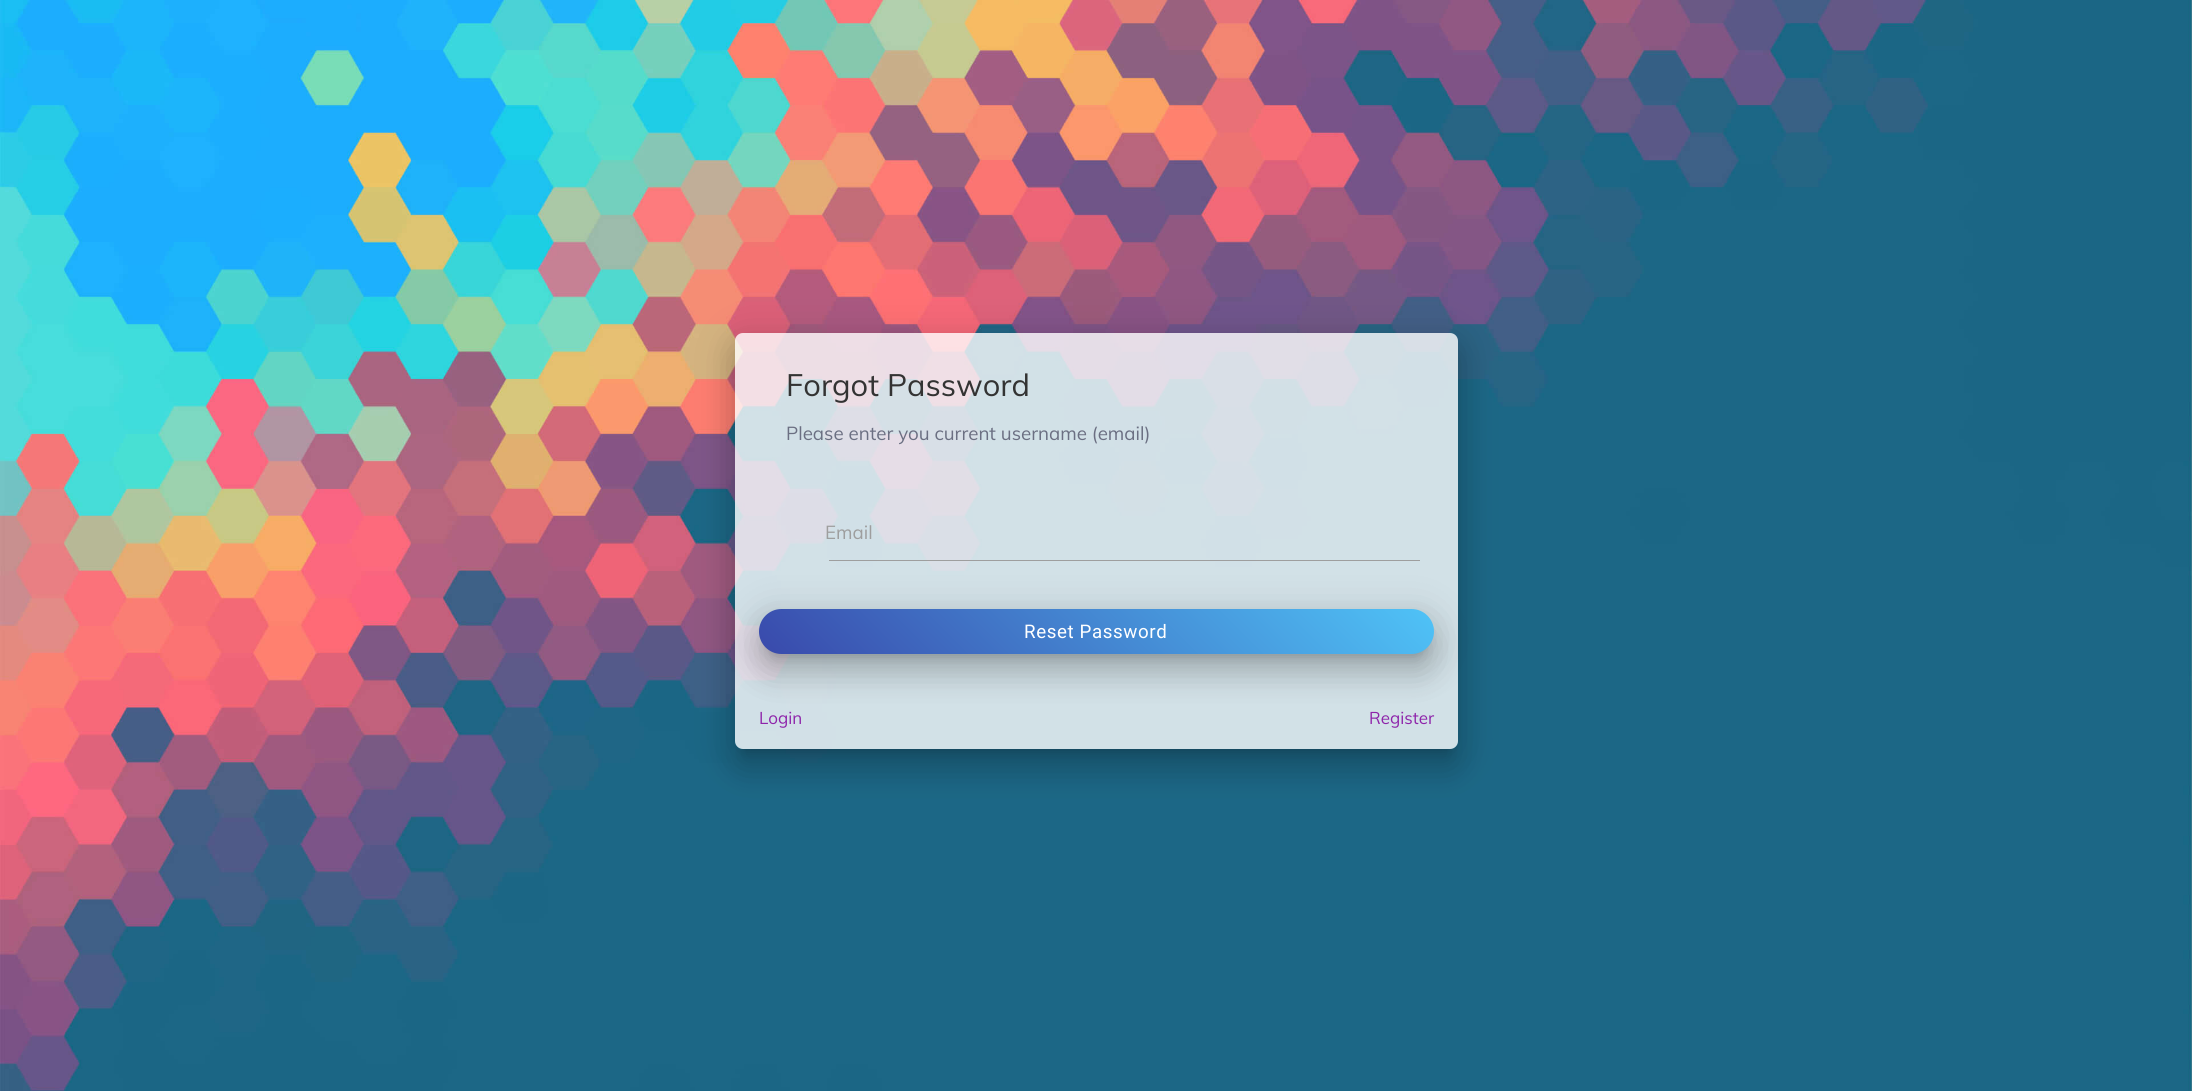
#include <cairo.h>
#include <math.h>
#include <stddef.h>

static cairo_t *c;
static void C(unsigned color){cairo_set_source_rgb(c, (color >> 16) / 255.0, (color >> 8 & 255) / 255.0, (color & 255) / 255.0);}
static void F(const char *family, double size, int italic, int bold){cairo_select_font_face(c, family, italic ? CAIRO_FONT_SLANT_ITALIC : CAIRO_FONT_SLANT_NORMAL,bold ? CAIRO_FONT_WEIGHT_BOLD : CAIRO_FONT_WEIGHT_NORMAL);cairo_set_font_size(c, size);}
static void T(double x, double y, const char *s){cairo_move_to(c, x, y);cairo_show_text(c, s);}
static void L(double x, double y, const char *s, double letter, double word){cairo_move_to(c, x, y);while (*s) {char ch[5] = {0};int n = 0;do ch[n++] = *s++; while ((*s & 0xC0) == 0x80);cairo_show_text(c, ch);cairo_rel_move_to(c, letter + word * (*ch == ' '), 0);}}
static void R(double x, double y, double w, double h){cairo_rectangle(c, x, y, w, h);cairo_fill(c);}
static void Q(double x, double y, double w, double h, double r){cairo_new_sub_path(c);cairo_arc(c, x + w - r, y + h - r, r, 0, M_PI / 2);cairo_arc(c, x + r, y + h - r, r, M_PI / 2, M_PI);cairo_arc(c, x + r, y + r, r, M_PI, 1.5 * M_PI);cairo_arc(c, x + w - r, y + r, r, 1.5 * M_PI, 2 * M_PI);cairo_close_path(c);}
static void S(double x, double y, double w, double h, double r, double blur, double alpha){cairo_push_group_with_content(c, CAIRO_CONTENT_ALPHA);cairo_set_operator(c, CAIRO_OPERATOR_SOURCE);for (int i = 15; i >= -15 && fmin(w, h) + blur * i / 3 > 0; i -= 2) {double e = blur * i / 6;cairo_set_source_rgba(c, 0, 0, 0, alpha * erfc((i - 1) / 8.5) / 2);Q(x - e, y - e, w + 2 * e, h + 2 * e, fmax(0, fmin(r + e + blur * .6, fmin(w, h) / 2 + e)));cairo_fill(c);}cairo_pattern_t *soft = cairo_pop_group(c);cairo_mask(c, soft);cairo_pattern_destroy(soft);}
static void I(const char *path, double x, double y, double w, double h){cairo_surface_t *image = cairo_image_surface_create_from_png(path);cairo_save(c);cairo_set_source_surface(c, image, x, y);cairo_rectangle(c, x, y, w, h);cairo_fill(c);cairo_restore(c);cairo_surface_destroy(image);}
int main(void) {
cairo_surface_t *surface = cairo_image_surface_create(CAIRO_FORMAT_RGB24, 2192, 1091);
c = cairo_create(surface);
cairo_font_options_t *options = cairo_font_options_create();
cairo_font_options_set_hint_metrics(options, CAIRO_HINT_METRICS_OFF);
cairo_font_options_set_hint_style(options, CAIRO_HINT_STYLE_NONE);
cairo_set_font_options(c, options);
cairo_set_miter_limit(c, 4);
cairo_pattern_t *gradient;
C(0xffffff);
cairo_paint(c);
I("1.png",0,0,2192,1091);
cairo_save(c);
cairo_set_fill_rule(c,CAIRO_FILL_RULE_EVEN_ODD);
cairo_new_path(c);
cairo_move_to(c,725,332);
cairo_line_to(c,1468,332);
cairo_line_to(c,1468,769);
cairo_line_to(c,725,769);
cairo_close_path(c);
cairo_move_to(c,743,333);
cairo_line_to(c,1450,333);
cairo_curve_to(c,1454.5,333,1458,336.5,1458,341);
cairo_line_to(c,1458,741);
cairo_curve_to(c,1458,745.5,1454.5,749,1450,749);
cairo_line_to(c,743,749);
cairo_curve_to(c,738.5,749,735,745.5,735,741);
cairo_line_to(c,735,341);
cairo_curve_to(c,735,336.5,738.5,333,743,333);
cairo_close_path(c);
cairo_clip(c);
C(0x000000);
S(744,351,705,399,0,6,.2);
cairo_restore(c);
cairo_save(c);
cairo_set_fill_rule(c,CAIRO_FILL_RULE_EVEN_ODD);
cairo_new_path(c);
cairo_move_to(c,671,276);
cairo_line_to(c,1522,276);
cairo_line_to(c,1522,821);
cairo_line_to(c,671,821);
cairo_close_path(c);
cairo_move_to(c,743,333);
cairo_line_to(c,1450,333);
cairo_curve_to(c,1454.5,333,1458,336.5,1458,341);
cairo_line_to(c,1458,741);
cairo_curve_to(c,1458,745.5,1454.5,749,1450,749);
cairo_line_to(c,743,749);
cairo_curve_to(c,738.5,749,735,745.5,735,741);
cairo_line_to(c,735,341);
cairo_curve_to(c,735,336.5,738.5,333,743,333);
cairo_close_path(c);
cairo_clip(c);
C(0x000000);
S(729,334,735,429,14,19,.12);
cairo_restore(c);
cairo_save(c);
cairo_set_fill_rule(c,CAIRO_FILL_RULE_EVEN_ODD);
cairo_new_path(c);
cairo_move_to(c,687,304);
cairo_line_to(c,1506,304);
cairo_line_to(c,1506,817);
cairo_line_to(c,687,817);
cairo_close_path(c);
cairo_move_to(c,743,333);
cairo_line_to(c,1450,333);
cairo_curve_to(c,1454.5,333,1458,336.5,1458,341);
cairo_line_to(c,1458,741);
cairo_curve_to(c,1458,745.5,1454.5,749,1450,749);
cairo_line_to(c,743,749);
cairo_curve_to(c,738.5,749,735,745.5,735,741);
cairo_line_to(c,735,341);
cairo_curve_to(c,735,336.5,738.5,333,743,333);
cairo_close_path(c);
cairo_clip(c);
C(0x000000);
S(733,350,727,421,10,15,.14);
cairo_restore(c);
cairo_set_source_rgba(c,1,1,1,0.8);
Q(735,333,723,416,8);
cairo_fill(c);
F("Muli",30.75,0,0);
C(0x333333);
T(786,396,"Forgot Password");
F("Muli",18.75,0,0);
C(0x6b6f82);
T(786,440,"Please enter you current username (email)");
C(0x9e9e9e);
T(825,539,"Email");
R(829,560,591,1);
C(0x000000);
S(768,628,657,27,13.5,6,.2);
S(753,610,687,58,29,19,.12);
S(756,626,680,50,25,15,.14);
gradient = cairo_pattern_create_linear(916,811,1276,451);
cairo_pattern_add_color_stop_rgba(gradient,0,0.224,0.286,0.671,1);
cairo_pattern_add_color_stop_rgba(gradient,1,0.31,0.765,0.969,1);
cairo_set_source(c,gradient);
cairo_pattern_destroy(gradient);
Q(759,609,675,45,22.5);
cairo_fill(c);
F("Roboto",18.75,0,0);
C(0xffffff);
L(1024,638,"Reset Password",.6,0);
F("Muli",17,0,0);
C(0x8e24aa);
T(759,724,"Login");
T(1369,724,"Register");
cairo_surface_write_to_png(surface, "o.png");
cairo_font_options_destroy(options);
cairo_destroy(c);
cairo_surface_destroy(surface);
return 0;
}
